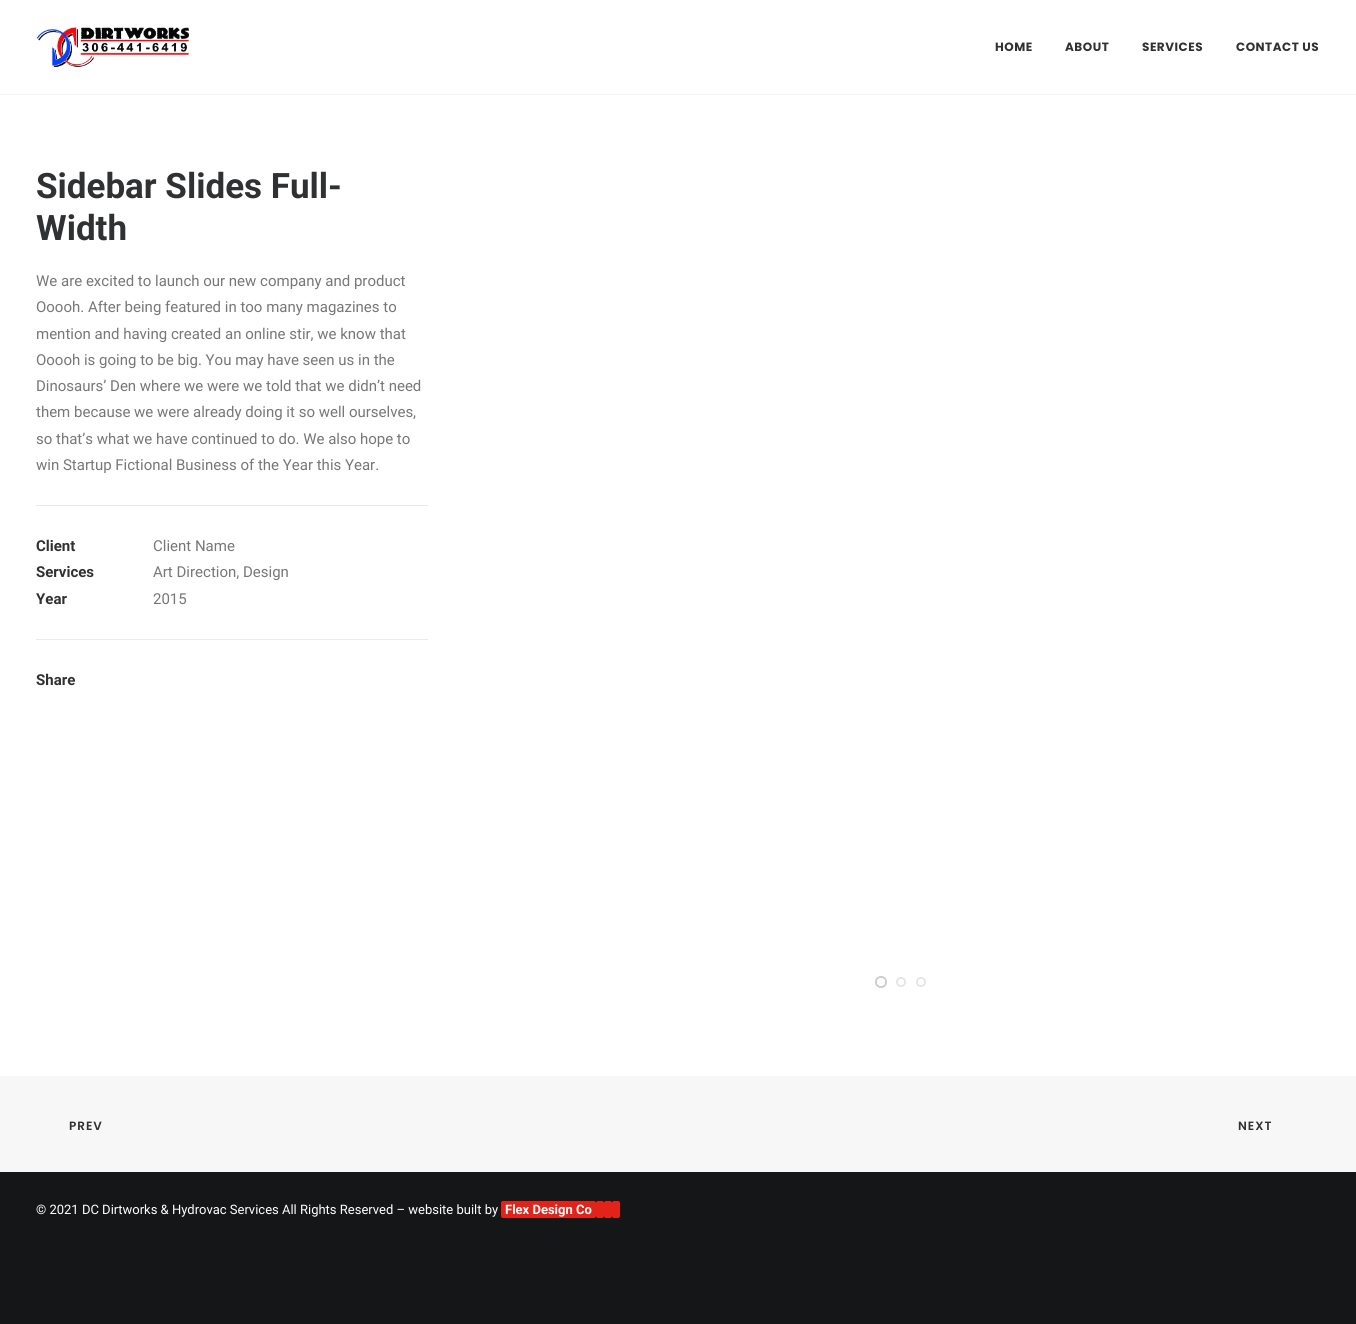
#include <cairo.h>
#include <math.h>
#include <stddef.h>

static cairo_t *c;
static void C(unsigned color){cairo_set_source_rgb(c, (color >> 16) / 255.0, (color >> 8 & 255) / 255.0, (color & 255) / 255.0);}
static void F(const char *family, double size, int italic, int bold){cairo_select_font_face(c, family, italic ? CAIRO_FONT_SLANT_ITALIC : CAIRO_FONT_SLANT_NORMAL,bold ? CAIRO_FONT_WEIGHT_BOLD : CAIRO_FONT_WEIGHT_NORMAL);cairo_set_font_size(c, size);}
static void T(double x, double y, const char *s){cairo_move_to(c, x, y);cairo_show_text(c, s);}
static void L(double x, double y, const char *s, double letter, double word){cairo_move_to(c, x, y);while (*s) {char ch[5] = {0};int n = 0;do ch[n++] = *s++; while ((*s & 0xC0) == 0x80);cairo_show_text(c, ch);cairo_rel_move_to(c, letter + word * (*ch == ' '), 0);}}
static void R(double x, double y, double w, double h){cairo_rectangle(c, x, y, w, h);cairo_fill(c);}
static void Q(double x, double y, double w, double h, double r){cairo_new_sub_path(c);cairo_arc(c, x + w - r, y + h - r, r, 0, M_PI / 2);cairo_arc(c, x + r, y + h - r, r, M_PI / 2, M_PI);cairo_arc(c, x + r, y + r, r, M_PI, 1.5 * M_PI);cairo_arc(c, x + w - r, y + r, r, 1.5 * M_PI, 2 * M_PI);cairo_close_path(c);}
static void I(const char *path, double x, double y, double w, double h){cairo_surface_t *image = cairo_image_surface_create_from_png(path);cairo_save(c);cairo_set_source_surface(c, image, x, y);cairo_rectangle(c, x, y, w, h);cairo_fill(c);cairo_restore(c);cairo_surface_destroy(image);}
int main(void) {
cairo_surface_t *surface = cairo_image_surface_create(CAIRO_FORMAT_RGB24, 1356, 1324);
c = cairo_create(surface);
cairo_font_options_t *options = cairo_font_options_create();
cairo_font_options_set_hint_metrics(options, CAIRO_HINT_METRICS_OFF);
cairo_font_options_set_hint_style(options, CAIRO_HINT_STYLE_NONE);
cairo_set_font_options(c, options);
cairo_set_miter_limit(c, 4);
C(0x141618);
cairo_paint(c);
C(0xffffff);
R(0,0,1356,94);
C(0xf5f5f5);
R(0,94,1356,1);
I("1.png",36,27,153,40);
F("Poppins",12,0,1);
C(0x303133);
L(995,51,"HOME",.5,0);
L(1065,51,"ABOUT",.5,0);
L(1142,51,"SERVICES",.5,0);
L(1236,51,"CONTACT US",.5,0);
C(0xffffff);
R(0,95,1356,981);
F("Roboto",35,0,1);
C(0x303133);
T(36,198,"Sidebar Slides Full-");
T(36,240,"Width");
F("Roboto",15,0,0);
C(0x777777);
T(36,286,"We are excited to launch our new company and product");
T(36,312,"Ooooh. After being featured in too many magazines to");
T(36,339,"mention and having created an online stir, we know that");
T(36,365,"Ooooh is going to be big. You may have seen us in the");
T(36,391,"Dinosaurs’ Den where we were we told that we didn’t need");
T(36,417,"them because we were already doing it so well ourselves,");
T(36,444,"so that’s what we have continued to do. We also hope to");
T(36,470,"win Startup Fictional Business of the Year this Year.");
C(0xeaeaea);
R(36,505,392,1);
F("Roboto",15,0,1);
C(0x303133);
T(36,551,"Client");
F("Roboto",15,0,0);
C(0x777777);
T(153,551,"Client Name");
F("Roboto",15,0,1);
C(0x303133);
T(36,577,"Services");
F("Roboto",15,0,0);
C(0x777777);
T(153,577,"Art Direction, Design");
F("Roboto",15,0,1);
C(0x303133);
T(36,604,"Year");
F("Roboto",15,0,0);
C(0x777777);
T(153,604,"2015");
C(0xeaeaea);
R(36,639,392,1);
F("Roboto",15,0,1);
C(0x303133);
T(36,685,"Share");
cairo_new_path(c);
cairo_arc(c,881,982,5,0,2 * M_PI);
C(0xcccccc);
cairo_stroke(c);
C(0xffffff);
cairo_arc(c,881,982,4,0,2 * M_PI);
cairo_fill(c);
cairo_arc(c,901,982,4,0,2 * M_PI);
C(0xe6e6e6);
cairo_stroke(c);
C(0xffffff);
cairo_arc(c,901,982,3,0,2 * M_PI);
cairo_fill(c);
cairo_arc(c,921,982,4,0,2 * M_PI);
C(0xe6e6e6);
cairo_stroke(c);
C(0xffffff);
cairo_arc(c,921,982,3,0,2 * M_PI);
cairo_fill(c);
C(0xf7f7f7);
R(0,1076,1356,96);
F("Poppins SemiBold",12,0,0);
C(0x303133);
L(69,1130,"PREV",1,0);
L(1238,1130,"NEXT",1,0);
F("Roboto",13,0,0);
C(0xffffff);
T(36,1214,"© 2021 DC Dirtworks & Hydrovac Services All Rights Reserved – website built by");
C(0xe1231a);
Q(501,1201,95,17,2);
cairo_fill(c);
F("Roboto",13,0,1);
C(0xffffff);
T(505,1214,"Flex Design Co");
C(0xe1231a);
Q(596,1201,8,17,2);
cairo_fill(c);
Q(604,1201,8,17,2);
cairo_fill(c);
Q(612,1201,8,17,2);
cairo_fill(c);
cairo_surface_write_to_png(surface, "o.png");
cairo_font_options_destroy(options);
cairo_destroy(c);
cairo_surface_destroy(surface);
return 0;
}
